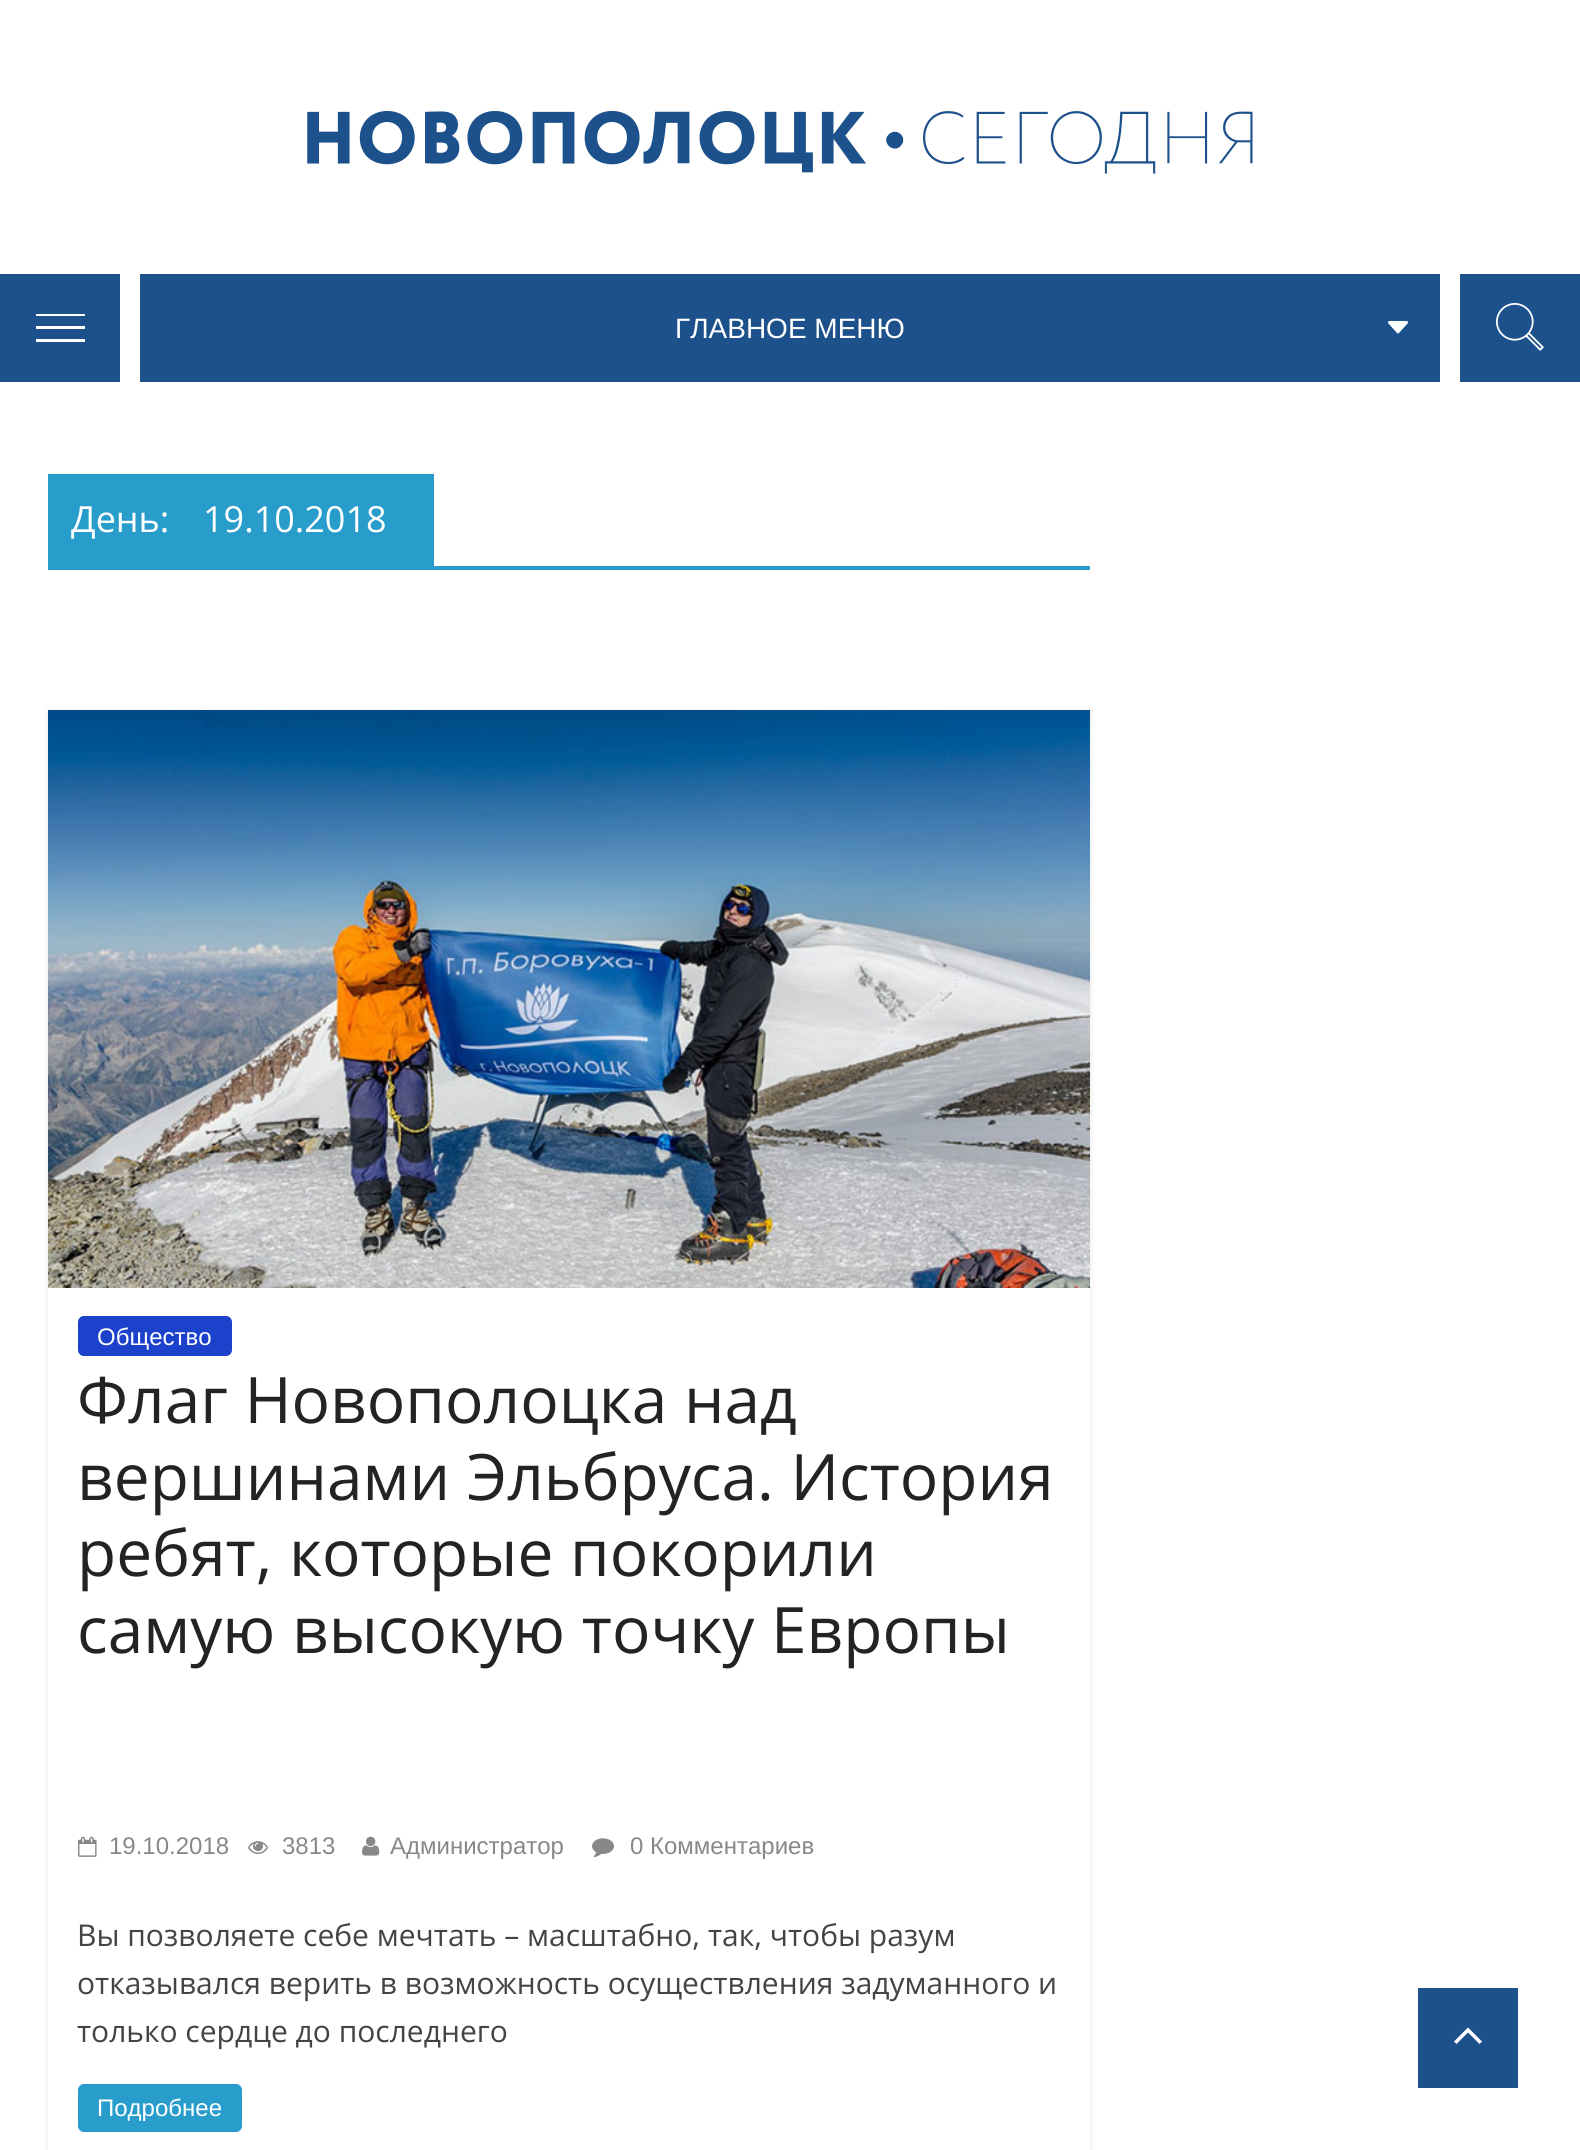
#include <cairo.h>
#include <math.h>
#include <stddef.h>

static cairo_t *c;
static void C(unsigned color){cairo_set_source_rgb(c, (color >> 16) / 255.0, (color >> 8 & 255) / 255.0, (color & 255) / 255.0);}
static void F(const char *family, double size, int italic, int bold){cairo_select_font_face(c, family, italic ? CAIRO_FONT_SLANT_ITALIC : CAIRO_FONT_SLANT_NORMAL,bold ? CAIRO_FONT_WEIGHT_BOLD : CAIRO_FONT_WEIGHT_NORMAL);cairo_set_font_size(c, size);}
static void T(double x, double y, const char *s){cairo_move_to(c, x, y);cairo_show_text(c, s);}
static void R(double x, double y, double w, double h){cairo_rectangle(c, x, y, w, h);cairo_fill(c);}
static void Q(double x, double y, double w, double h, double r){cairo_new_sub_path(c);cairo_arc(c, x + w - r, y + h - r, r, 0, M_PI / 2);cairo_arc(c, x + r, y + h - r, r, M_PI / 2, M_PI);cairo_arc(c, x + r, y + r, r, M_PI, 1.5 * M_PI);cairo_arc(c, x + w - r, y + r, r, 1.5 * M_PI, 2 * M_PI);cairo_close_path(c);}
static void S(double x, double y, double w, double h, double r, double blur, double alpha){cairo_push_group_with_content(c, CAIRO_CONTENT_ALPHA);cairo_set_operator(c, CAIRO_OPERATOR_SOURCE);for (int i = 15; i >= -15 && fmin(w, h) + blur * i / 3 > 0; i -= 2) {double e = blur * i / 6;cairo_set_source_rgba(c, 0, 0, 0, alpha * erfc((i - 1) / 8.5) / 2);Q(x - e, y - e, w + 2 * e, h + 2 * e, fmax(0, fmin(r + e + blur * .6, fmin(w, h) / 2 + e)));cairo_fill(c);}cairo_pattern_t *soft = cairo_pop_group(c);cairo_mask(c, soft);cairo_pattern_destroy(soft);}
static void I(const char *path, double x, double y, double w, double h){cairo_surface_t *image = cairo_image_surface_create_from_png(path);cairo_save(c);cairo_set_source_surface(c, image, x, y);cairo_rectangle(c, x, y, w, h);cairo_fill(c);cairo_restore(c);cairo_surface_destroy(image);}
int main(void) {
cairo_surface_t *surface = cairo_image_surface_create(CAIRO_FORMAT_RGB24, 1580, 2150);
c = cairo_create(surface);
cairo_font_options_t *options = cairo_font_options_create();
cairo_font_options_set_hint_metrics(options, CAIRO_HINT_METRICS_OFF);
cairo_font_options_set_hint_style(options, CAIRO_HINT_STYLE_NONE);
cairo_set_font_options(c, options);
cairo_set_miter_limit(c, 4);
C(0xffffff);
cairo_paint(c);
I("1.png",307,111,946,63);
C(0x1d518b);
R(0,274,120,108);
C(0xffffff);
cairo_new_path(c);
cairo_move_to(c,36,314);
cairo_line_to(c,85,314);
cairo_line_to(c,85,316);
cairo_line_to(c,36,316);
cairo_close_path(c);
cairo_move_to(c,36,326);
cairo_line_to(c,85,326);
cairo_line_to(c,85,329);
cairo_line_to(c,36,329);
cairo_close_path(c);
cairo_move_to(c,36,339);
cairo_line_to(c,85,339);
cairo_line_to(c,85,342);
cairo_line_to(c,36,342);
cairo_close_path(c);
cairo_fill(c);
C(0x1d518b);
R(140,274,1300,108);
F("Liberation Sans",28,0,0);
C(0xffffff);
T(675,338,"ГЛАВНОЕ МЕНЮ");
I("2.png",1388,321,20,13);
C(0x1d518b);
R(1460,274,120,108);
I("3.png",1496,303,48,48);
C(0x289dcc);
R(48,566,1042,4);
R(48,474,386,92);
F("Open Sans",36,0,0);
C(0xffffff);
T(71,532,"День:");
T(203,532,"19.10.2018");
cairo_save(c);
cairo_set_fill_rule(c,CAIRO_FILL_RULE_EVEN_ODD);
cairo_new_path(c);
cairo_move_to(c,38,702);
cairo_line_to(c,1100,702);
cairo_line_to(c,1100,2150);
cairo_line_to(c,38,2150);
cairo_close_path(c);
cairo_move_to(c,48,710);
cairo_line_to(c,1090,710);
cairo_line_to(c,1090,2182);
cairo_line_to(c,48,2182);
cairo_close_path(c);
cairo_clip(c);
C(0x000000);
S(48,712,1042,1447,0,3,.1);
cairo_restore(c);
I("4.png",48,710,1042,578);
C(0x1c42cc);
Q(78,1316,154,40,6);
cairo_fill(c);
F("Liberation Sans",24,0,0);
C(0xffffff);
T(97,1345,"Общество");
F("Open Sans",64,0,0);
C(0x232323);
T(77,1423,"Флаг Новополоцка над");
T(77,1500,"вершинами Эльбруса. История");
T(77,1576,"ребят, которые покорили");
T(77,1653,"самую высокую точку Европы");
I("5.png",78,1836,19,21);
F("Liberation Sans",24,0,0);
C(0x888888);
T(109,1854,"19.10.2018");
I("6.png",248,1841,20,13);
T(282,1854,"3813");
I("7.png",362,1836,18,20);
T(390,1854,"Администратор");
I("8.png",592,1838,22,20);
T(630,1854,"0 Комментариев");
F("Open Sans",30,0,0);
C(0x444444);
T(77,1946,"Вы позволяете себе мечтать – масштабно, так, чтобы разум");
T(77,1994,"отказывался верить в возможность осуществления задуманного и");
T(77,2042,"только сердце до последнего");
C(0x289dcc);
Q(78,2084,164,48,6);
cairo_fill(c);
F("Liberation Sans",24,0,0);
C(0xffffff);
T(97,2116,"Подробнее");
C(0x1d518b);
R(1418,1988,100,100);
C(0xffffff);
cairo_new_path(c);
cairo_move_to(c,1454,2041.5);
cairo_line_to(c,1456.5,2044);
cairo_line_to(c,1468,2032.5);
cairo_line_to(c,1479.5,2044);
cairo_line_to(c,1482,2041.5);
cairo_line_to(c,1468,2027.5);
cairo_close_path(c);
cairo_fill(c);
cairo_surface_write_to_png(surface, "o.png");
cairo_font_options_destroy(options);
cairo_destroy(c);
cairo_surface_destroy(surface);
return 0;
}
